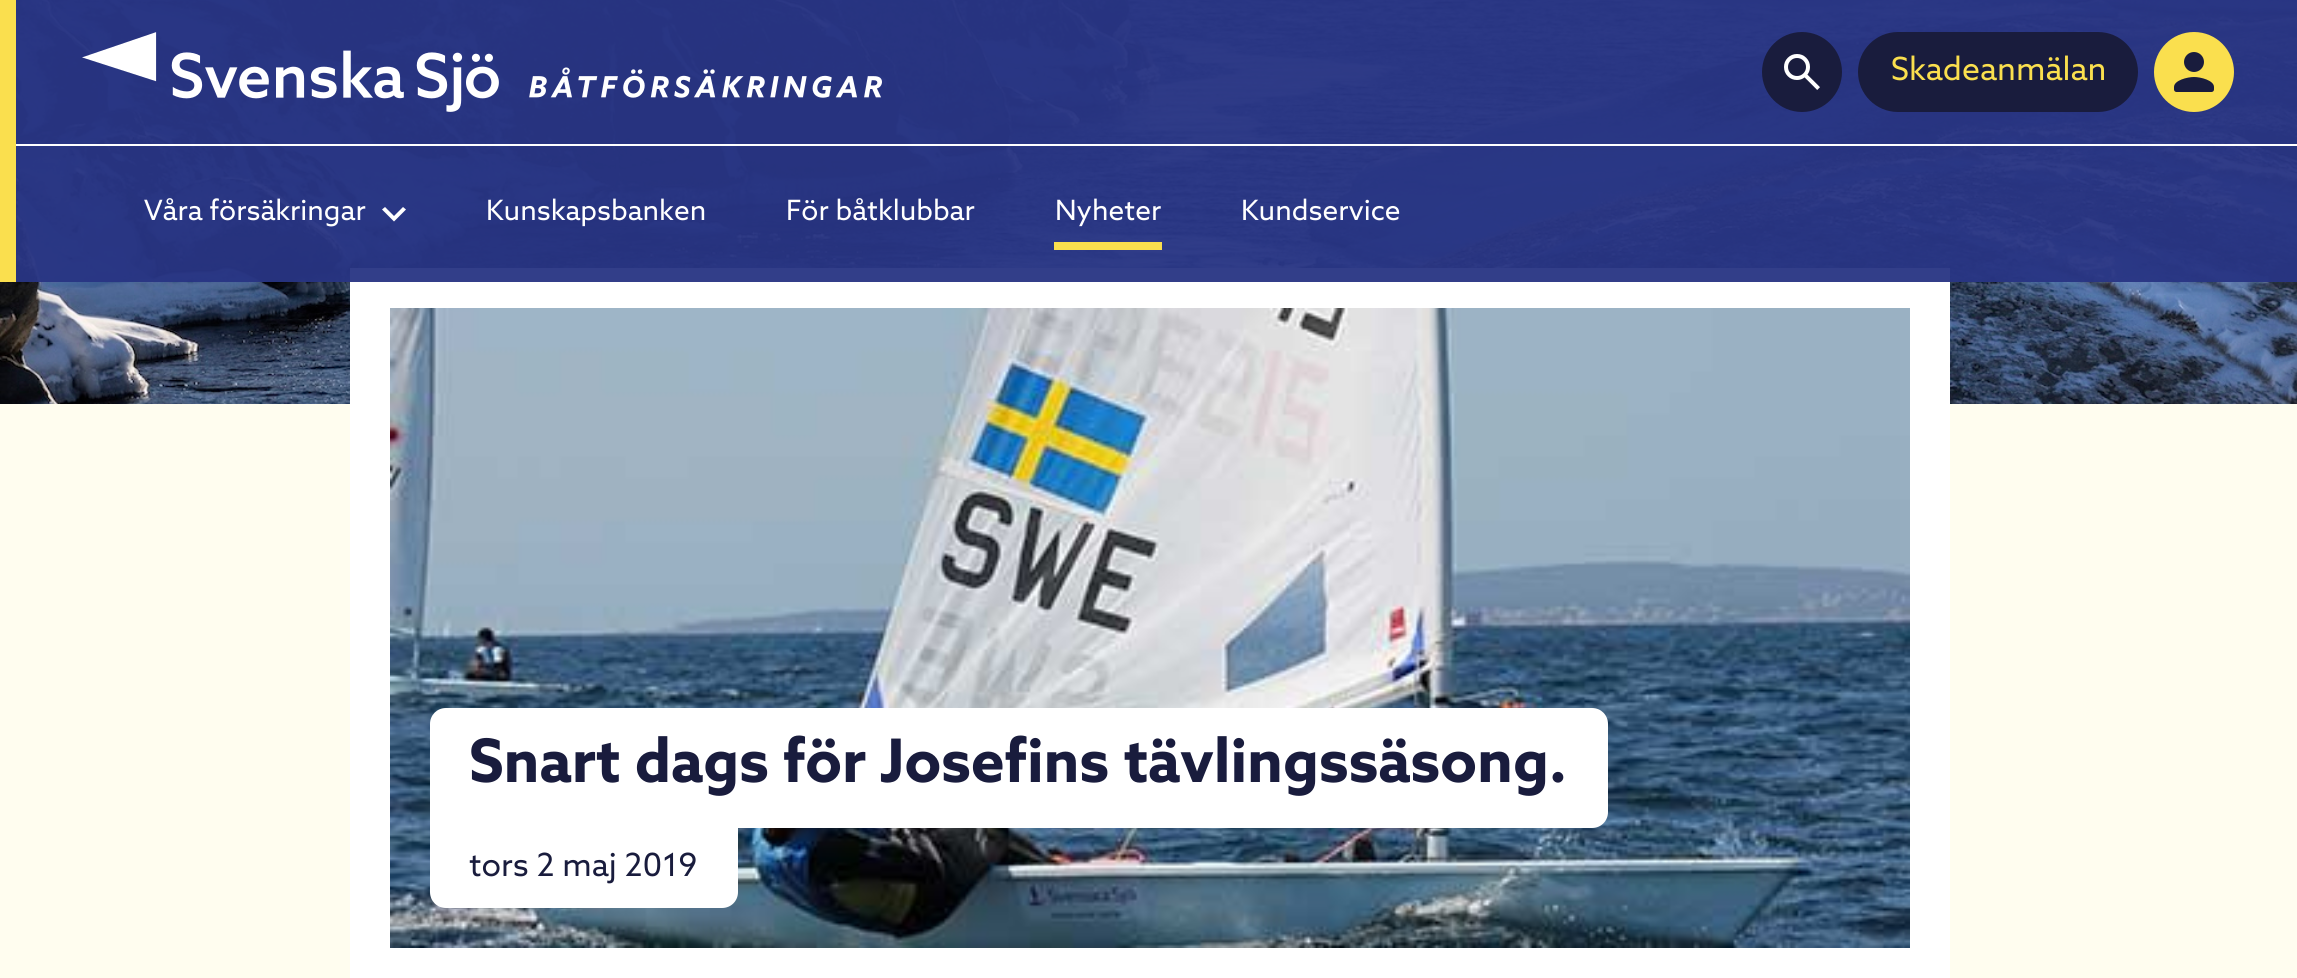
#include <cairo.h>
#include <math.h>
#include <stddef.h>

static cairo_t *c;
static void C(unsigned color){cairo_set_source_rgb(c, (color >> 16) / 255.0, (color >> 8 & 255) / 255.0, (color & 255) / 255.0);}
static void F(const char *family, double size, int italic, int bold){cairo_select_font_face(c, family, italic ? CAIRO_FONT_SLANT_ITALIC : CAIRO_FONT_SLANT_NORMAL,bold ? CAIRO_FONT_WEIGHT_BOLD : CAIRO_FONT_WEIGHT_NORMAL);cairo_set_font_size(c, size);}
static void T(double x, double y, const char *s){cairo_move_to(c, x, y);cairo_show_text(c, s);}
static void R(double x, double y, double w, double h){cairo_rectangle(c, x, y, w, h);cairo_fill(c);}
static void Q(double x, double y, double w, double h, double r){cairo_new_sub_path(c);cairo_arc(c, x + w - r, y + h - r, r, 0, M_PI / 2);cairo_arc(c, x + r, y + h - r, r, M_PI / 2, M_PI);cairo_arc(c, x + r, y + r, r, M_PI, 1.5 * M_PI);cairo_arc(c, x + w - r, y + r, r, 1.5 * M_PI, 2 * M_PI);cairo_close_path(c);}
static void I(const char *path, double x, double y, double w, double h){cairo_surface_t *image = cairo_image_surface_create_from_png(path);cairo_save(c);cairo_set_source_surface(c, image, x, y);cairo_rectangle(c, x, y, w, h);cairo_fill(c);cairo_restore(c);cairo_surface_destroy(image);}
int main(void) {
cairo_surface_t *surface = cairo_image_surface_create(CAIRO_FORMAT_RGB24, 2297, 978);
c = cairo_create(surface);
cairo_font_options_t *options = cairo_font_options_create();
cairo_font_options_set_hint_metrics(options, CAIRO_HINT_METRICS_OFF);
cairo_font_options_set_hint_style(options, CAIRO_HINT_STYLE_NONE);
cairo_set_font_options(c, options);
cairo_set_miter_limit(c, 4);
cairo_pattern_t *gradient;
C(0xfffdef);
cairo_paint(c);
I("4.png",0,0,2297,404);
C(0xfadf4e);
R(0,0,16,282);
gradient = cairo_pattern_create_linear(1149,-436,1149,404);
cairo_pattern_add_color_stop_rgba(gradient,0,0.157,0.208,0.514,1);
cairo_pattern_add_color_stop_rgba(gradient,.18,0.157,0.208,0.514,.95);
cairo_pattern_add_color_stop_rgba(gradient,.35,0.157,0.208,0.514,.65);
cairo_pattern_add_color_stop_rgba(gradient,.55,0.157,0.208,0.514,.35);
cairo_pattern_add_color_stop_rgba(gradient,.85,0.157,0.208,0.514,0);
cairo_set_source(c,gradient);
cairo_pattern_destroy(gradient);
R(16,0,2281,262);
cairo_set_source_rgba(c,0.157,0.208,0.514,0.95);
R(16,0,2281,144);
C(0xffffff);
R(16,144,2281,2);
I("1.png",82,32,800,80);
C(0x191c3d);
cairo_arc(c,1802,72,40,0,2 * M_PI);
cairo_fill(c);
I("2.png",1784,54,36,36);
Q(1858,32,280,80,40);
cairo_fill(c);
F("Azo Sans",32,0,0);
C(0xfadf4e);
T(1891,80,"Skadeanmälan");
cairo_new_path(c);
cairo_arc(c,2194,72,40,0,2 * M_PI);
cairo_fill(c);
I("3.png",2174,52,40,40);
C(0xffffff);
R(350,268,1600,710);
cairo_set_source_rgba(c,0.157,0.208,0.514,0.95);
R(16,146,2281,136);
F("Azo Sans",28,0,0);
C(0xffffff);
T(144,220,"Våra försäkringar");
cairo_new_path(c);
cairo_move_to(c,394,221.5);
cairo_line_to(c,382,209.5);
cairo_line_to(c,385,207);
cairo_line_to(c,394,216);
cairo_line_to(c,403,207);
cairo_line_to(c,406,209.5);
cairo_close_path(c);
cairo_fill(c);
T(486,220,"Kunskapsbanken");
T(786,220,"För båtklubbar");
T(1055,220,"Nyheter");
C(0xfadf4e);
R(1054,242,108,8);
C(0xffffff);
T(1241,220,"Kundservice");
I("5.png",390,308,1520,640);
cairo_new_path(c);
cairo_move_to(c,446,708);
cairo_line_to(c,1592,708);
cairo_curve_to(c,1601,708,1608,715,1608,724);
cairo_line_to(c,1608,812);
cairo_curve_to(c,1608,821,1601,828,1592,828);
cairo_line_to(c,430,828);
cairo_line_to(c,430,724);
cairo_curve_to(c,430,715,437,708,446,708);
cairo_close_path(c);
cairo_fill(c);
F("Azo Sans",60,0,1);
C(0x191c3d);
T(469,782,"Snart dags för Josefins tävlingssäsong.");
C(0xffffff);
cairo_new_path(c);
cairo_move_to(c,430,828);
cairo_line_to(c,738,828);
cairo_line_to(c,738,892);
cairo_curve_to(c,738,901,731,908,722,908);
cairo_line_to(c,446,908);
cairo_curve_to(c,437,908,430,901,430,892);
cairo_close_path(c);
cairo_fill(c);
F("Azo Sans",32,0,0);
C(0x191c3d);
T(469,876,"tors 2 maj 2019");
cairo_surface_write_to_png(surface, "o.png");
cairo_font_options_destroy(options);
cairo_destroy(c);
cairo_surface_destroy(surface);
return 0;
}
